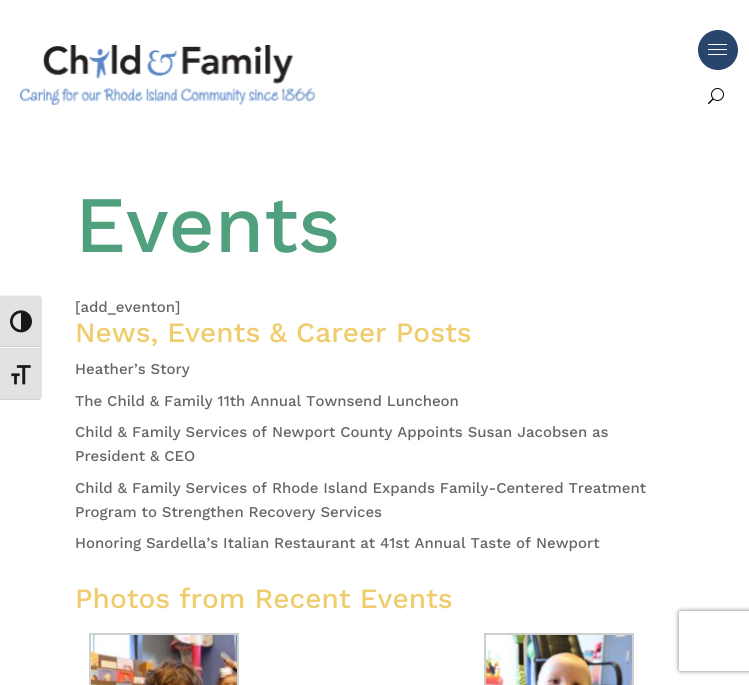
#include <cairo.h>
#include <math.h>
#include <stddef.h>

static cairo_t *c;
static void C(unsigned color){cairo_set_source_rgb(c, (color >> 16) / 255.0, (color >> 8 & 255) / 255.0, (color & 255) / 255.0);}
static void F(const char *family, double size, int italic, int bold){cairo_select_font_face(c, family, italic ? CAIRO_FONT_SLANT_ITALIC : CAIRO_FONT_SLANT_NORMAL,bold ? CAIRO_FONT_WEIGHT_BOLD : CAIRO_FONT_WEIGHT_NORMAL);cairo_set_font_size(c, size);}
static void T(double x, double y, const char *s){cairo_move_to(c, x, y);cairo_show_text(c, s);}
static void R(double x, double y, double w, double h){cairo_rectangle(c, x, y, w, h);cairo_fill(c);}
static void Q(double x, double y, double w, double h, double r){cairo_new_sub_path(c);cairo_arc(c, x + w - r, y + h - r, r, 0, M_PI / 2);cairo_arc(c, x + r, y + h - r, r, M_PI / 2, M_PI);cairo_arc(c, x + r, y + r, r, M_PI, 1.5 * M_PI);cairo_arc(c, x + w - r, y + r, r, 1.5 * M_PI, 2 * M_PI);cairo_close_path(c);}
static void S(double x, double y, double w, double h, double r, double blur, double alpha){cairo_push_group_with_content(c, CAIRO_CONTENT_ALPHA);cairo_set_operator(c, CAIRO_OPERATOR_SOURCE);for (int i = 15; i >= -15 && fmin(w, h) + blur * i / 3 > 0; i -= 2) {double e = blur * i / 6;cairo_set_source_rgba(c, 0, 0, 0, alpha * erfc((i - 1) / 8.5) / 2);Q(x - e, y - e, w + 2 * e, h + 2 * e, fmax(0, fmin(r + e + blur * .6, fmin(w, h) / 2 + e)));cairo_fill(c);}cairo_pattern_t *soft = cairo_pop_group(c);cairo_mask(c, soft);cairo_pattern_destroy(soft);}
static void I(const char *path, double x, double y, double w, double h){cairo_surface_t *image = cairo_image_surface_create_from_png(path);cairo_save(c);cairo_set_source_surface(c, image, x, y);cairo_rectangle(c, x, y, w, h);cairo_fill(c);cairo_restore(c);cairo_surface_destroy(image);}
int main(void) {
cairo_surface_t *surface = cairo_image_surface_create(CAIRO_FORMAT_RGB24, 749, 685);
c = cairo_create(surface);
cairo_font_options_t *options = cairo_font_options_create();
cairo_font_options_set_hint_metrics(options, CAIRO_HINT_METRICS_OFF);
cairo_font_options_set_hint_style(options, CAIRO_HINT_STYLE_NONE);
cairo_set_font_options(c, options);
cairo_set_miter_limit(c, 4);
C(0xffffff);
cairo_paint(c);
C(0x29456c);
cairo_arc(c,718,50,20,0,2 * M_PI);
cairo_fill(c);
C(0xffffff);
R(708,49,19,1);
R(708,44,19,1);
R(708,54,19,1);
I("1.png",20,45,295,60);
I("2.png",708,88,16,16);
C(0xe2e2e2);
cairo_new_path(c);
cairo_move_to(c,0,295);
cairo_line_to(c,38,295);
cairo_curve_to(c,40,295,42,297,42,299);
cairo_line_to(c,42,347);
cairo_line_to(c,0,347);
cairo_close_path(c);
cairo_fill(c);
C(0xf5f5f5);
cairo_new_path(c);
cairo_move_to(c,0,295);
cairo_line_to(c,0,296);
cairo_line_to(c,38,296);
cairo_curve_to(c,40,296,42,297,42,299);
cairo_curve_to(c,42,297,40,295,38,295);
cairo_close_path(c);
cairo_fill(c);
C(0xd2d2d2);
R(0,346,42,1);
I("3.png",10,310,22,23);
C(0xe2e2e2);
cairo_new_path(c);
cairo_move_to(c,0,347);
cairo_line_to(c,42,347);
cairo_line_to(c,42,396);
cairo_curve_to(c,42,398,40,400,38,400);
cairo_line_to(c,0,400);
cairo_close_path(c);
cairo_fill(c);
C(0xf5f5f5);
R(0,347,42,1);
C(0xd2d2d2);
cairo_new_path(c);
cairo_move_to(c,0,399);
cairo_line_to(c,0,400);
cairo_line_to(c,38,400);
cairo_curve_to(c,40,400,42,398,42,396);
cairo_curve_to(c,42,398,40,399,38,399);
cairo_close_path(c);
cairo_fill(c);
I("4.png",11,365,20,20);
F("Work Sans Medium",80,0,0);
C(0x509f7d);
T(75,252,"Events");
F("Work Sans Medium",15,0,0);
C(0x666666);
T(75,312,"[add_eventon]");
F("Work Sans Medium",28,0,0);
C(0xefcc6c);
T(75,342,"News, Events & Career Posts");
F("Work Sans Medium",15,0,0);
C(0x666666);
T(75,374,"Heather’s Story");
T(75,406,"The Child & Family 11th Annual Townsend Luncheon");
T(75,437,"Child & Family Services of Newport County Appoints Susan Jacobsen as");
T(75,461,"President & CEO");
T(75,493,"Child & Family Services of Rhode Island Expands Family-Centered Treatment");
T(75,517,"Program to Strengthen Recovery Services");
T(75,548,"Honoring Sardella’s Italian Restaurant at 41st Annual Taste of Newport");
F("Work Sans Medium",28,0,0);
C(0xefcc6c);
T(75,608,"Photos from Recent Events");
cairo_rectangle(c,90,634,148,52);
C(0xcfcfcf);
cairo_stroke(c);
I("5.png",91,635,146,50);
cairo_rectangle(c,485,634,148,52);
cairo_stroke(c);
I("6.png",486,635,146,50);
cairo_save(c);
cairo_set_fill_rule(c,CAIRO_FILL_RULE_EVEN_ODD);
cairo_new_path(c);
cairo_move_to(c,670,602);
cairo_line_to(c,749,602);
cairo_line_to(c,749,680);
cairo_line_to(c,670,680);
cairo_close_path(c);
cairo_move_to(c,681,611);
cairo_line_to(c,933,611);
cairo_curve_to(c,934,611,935,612,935,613);
cairo_line_to(c,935,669);
cairo_curve_to(c,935,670,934,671,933,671);
cairo_line_to(c,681,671);
cairo_curve_to(c,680,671,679,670,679,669);
cairo_line_to(c,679,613);
cairo_curve_to(c,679,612,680,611,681,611);
cairo_close_path(c);
cairo_clip(c);
C(0x808080);
S(679,611,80,60,2,2.5,1);
cairo_restore(c);
cairo_surface_write_to_png(surface, "o.png");
cairo_font_options_destroy(options);
cairo_destroy(c);
cairo_surface_destroy(surface);
return 0;
}
